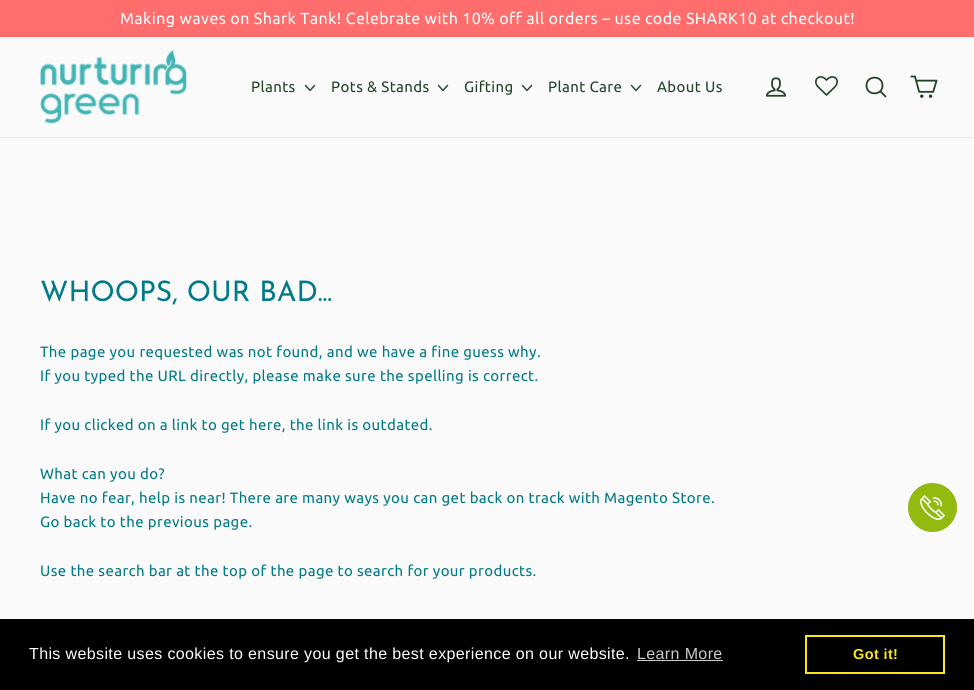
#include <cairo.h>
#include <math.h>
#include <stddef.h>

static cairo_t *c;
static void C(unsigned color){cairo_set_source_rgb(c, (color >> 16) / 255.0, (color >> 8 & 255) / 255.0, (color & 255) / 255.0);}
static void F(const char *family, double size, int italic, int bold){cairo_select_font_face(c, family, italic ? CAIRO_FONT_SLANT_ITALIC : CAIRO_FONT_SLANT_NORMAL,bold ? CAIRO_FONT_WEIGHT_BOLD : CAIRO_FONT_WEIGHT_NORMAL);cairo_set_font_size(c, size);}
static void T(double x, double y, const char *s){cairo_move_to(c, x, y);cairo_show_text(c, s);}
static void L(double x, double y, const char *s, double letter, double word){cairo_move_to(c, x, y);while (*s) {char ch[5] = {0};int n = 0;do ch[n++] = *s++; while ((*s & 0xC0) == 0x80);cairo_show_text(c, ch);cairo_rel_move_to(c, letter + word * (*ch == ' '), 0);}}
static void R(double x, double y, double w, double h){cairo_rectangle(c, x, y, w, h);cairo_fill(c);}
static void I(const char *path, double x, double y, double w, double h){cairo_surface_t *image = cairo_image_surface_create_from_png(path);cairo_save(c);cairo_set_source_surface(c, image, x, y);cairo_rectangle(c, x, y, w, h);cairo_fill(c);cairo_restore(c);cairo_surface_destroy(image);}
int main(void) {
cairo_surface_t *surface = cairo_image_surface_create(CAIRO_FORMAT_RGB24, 974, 690);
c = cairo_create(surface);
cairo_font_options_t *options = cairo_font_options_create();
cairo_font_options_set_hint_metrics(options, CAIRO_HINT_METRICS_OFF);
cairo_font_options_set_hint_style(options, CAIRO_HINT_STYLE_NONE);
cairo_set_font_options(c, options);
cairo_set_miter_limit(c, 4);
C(0xfafafa);
cairo_paint(c);
C(0xe8e8e1);
R(0,137,974,1);
C(0xff6d6d);
R(0,0,974,37);
F("Ubuntu",16,0,0);
C(0xffffff);
L(120,24,"Making waves on Shark Tank! Celebrate with 10% off all orders – use code SHARK10 at checkout!",.38,0);
I("1.png",40,50,147,74);
F("Ubuntu",15,0,0);
C(0x224229);
L(251,92,"Plants",.38,0);
cairo_new_path(c);
cairo_move_to(c,305.5,85.5);
cairo_line_to(c,310,90.5);
cairo_line_to(c,314.5,85.5);
cairo_set_line_width(c,1.4);
cairo_set_line_cap(c,CAIRO_LINE_CAP_ROUND);
cairo_set_line_join(c,CAIRO_LINE_JOIN_ROUND);
cairo_stroke(c);
L(331,92,"Pots & Stands",.38,0);
cairo_new_path(c);
cairo_move_to(c,438.5,85.5);
cairo_line_to(c,443,90.5);
cairo_line_to(c,447.5,85.5);
cairo_stroke(c);
L(464,92,"Gifting",.38,0);
cairo_new_path(c);
cairo_move_to(c,522.5,85.5);
cairo_line_to(c,527,90.5);
cairo_line_to(c,531.5,85.5);
cairo_stroke(c);
L(548,92,"Plant Care",.38,0);
cairo_new_path(c);
cairo_move_to(c,631.5,85.5);
cairo_line_to(c,636,90.5);
cairo_line_to(c,640.5,85.5);
cairo_stroke(c);
L(657,92,"About Us",.38,0);
I("2.png",765,77,22,20);
I("3.png",815,76,23,20);
cairo_new_path(c);
cairo_move_to(c,882.5,85.5);
cairo_curve_to(c,882.5,96,866.5,96,866.5,85.5);
cairo_curve_to(c,866.5,75,882.5,75,882.5,85.5);
cairo_close_path(c);
cairo_move_to(c,885.5,96.5);
cairo_line_to(c,880.5,91.5);
cairo_set_line_width(c,1.8);
cairo_stroke(c);
I("4.png",910,75,28,23);
F("Josefin Sans",28.25,0,0);
C(0x007a87);
T(40,301,"WHOOPS, OUR BAD...");
F("Ubuntu",15,0,0);
L(40,357,"The page you requested was not found, and we have a fine guess why.",.38,0);
L(40,381,"If you typed the URL directly, please make sure the spelling is correct.",.38,0);
L(40,430,"If you clicked on a link to get here, the link is outdated.",.38,0);
L(40,479,"What can you do?",.38,0);
L(40,503,"Have no fear, help is near! There are many ways you can get back on track with Magento Store.",.38,0);
L(40,527,"Go back to the previous page.",.38,0);
L(40,576,"Use the search bar at the top of the page to search for your products.",.38,0);
C(0x93ba11);
cairo_new_path(c);
cairo_arc(c,932.5,507.5,24.5,0,2 * M_PI);
cairo_fill(c);
I("5.png",920,495,25,25);
C(0x000000);
R(0,619,974,71);
F("Liberation Sans",16,0,0);
C(0xffffff);
L(29,659,"This website uses cookies to ensure you get the best experience on our website.",.38,0);
C(0xcccccc);
L(637,659,"Learn More",.38,0);
R(637,660,86,1);
cairo_rectangle(c,806,636,138,37);
C(0xf8e71c);
cairo_set_line_width(c,2);
cairo_set_line_cap(c,CAIRO_LINE_CAP_BUTT);
cairo_set_line_join(c,CAIRO_LINE_JOIN_MITER);
cairo_stroke(c);
F("Liberation Sans",14.5,0,1);
L(853,659,"Got it!",.38,0);
cairo_surface_write_to_png(surface, "o.png");
cairo_font_options_destroy(options);
cairo_destroy(c);
cairo_surface_destroy(surface);
return 0;
}
